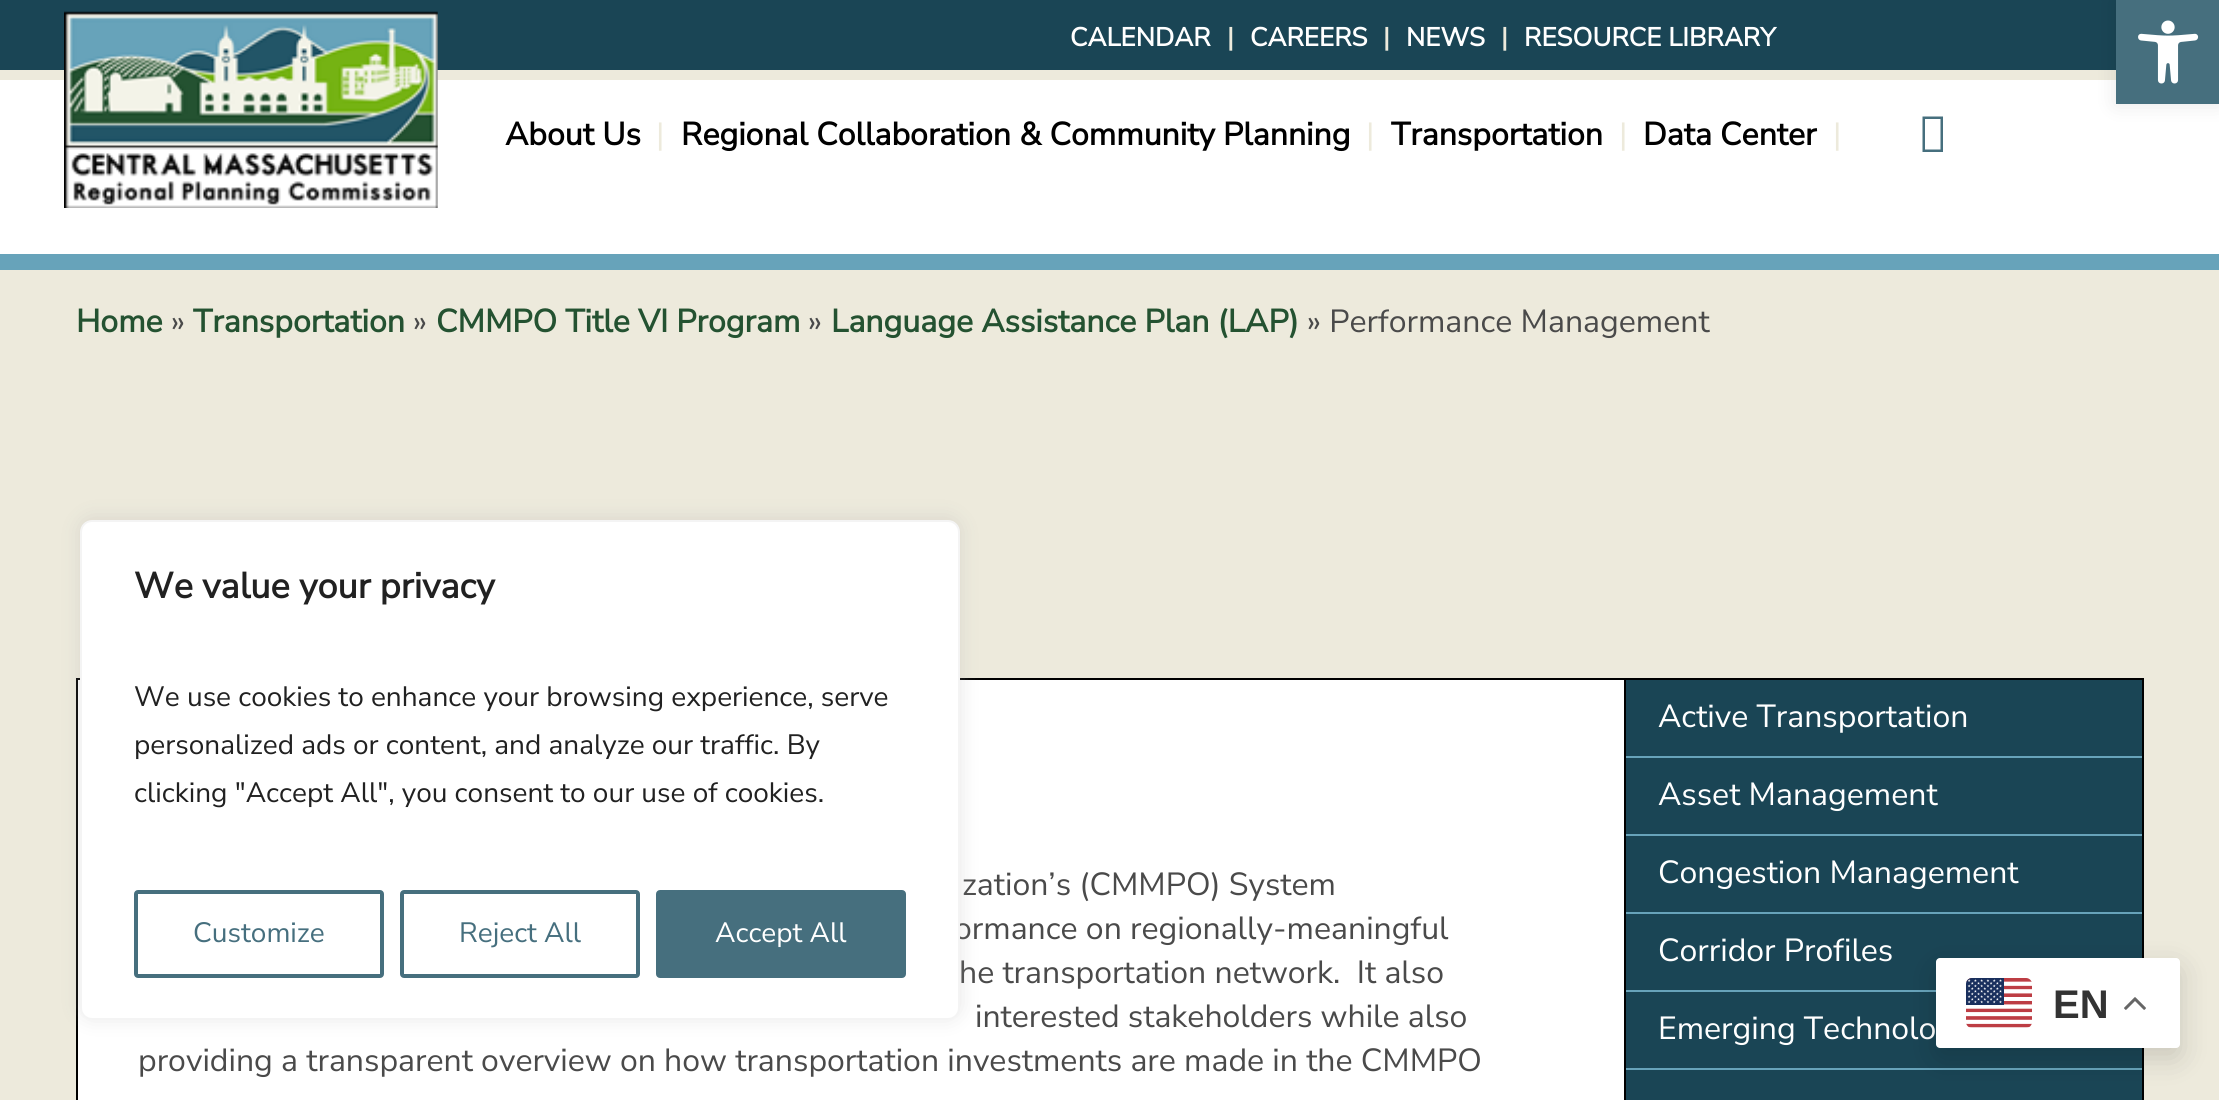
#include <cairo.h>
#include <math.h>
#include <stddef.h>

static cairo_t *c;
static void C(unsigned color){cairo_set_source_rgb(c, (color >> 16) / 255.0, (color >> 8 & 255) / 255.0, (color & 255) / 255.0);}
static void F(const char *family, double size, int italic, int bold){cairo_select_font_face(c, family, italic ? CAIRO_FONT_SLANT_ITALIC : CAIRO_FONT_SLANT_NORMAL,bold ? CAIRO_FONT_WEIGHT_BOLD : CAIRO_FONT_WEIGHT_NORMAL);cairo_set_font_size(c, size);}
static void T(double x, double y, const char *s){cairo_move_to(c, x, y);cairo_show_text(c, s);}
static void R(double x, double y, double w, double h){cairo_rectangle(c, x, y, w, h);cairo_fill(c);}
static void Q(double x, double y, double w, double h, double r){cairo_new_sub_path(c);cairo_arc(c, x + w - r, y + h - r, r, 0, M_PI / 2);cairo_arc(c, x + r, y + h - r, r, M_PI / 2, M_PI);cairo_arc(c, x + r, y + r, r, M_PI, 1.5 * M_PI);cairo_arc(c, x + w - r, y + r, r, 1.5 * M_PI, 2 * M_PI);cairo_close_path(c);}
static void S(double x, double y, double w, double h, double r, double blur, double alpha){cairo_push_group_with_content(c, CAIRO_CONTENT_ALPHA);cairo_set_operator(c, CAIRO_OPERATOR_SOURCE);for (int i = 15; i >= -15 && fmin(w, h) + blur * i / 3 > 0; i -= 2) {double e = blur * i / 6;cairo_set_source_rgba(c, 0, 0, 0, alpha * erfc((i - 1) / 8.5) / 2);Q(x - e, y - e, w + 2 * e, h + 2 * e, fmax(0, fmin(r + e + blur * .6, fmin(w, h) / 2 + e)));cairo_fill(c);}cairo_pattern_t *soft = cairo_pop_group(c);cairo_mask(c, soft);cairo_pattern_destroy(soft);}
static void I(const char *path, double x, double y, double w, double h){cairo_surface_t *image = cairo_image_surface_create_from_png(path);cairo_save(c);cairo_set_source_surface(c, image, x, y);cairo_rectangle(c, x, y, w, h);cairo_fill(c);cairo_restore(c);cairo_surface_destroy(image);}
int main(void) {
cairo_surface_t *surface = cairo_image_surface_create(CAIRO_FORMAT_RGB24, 2219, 1100);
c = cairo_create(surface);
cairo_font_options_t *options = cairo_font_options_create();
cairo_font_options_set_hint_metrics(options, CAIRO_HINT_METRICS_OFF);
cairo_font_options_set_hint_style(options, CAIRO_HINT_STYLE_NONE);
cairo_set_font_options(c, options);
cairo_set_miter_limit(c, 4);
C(0xedeadc);
cairo_paint(c);
C(0x1a4555);
R(0,0,2116,70);
F("Nunito Sans",26,0,1);
C(0xffffff);
T(1070,46,"CALENDAR");
C(0xedeadc);
T(1227,46,"|");
C(0xffffff);
T(1250,46,"CAREERS");
C(0xedeadc);
T(1383,46,"|");
C(0xffffff);
T(1406,46,"NEWS");
C(0xedeadc);
T(1501,46,"|");
C(0xffffff);
T(1524,46,"RESOURCE LIBRARY");
R(0,80,2219,174);
C(0x67a3ba);
R(0,254,2219,16);
I("1.png",64,11,374,197);
F("Nunito Sans",32,0,1);
C(0x000000);
T(505,145,"About Us");
F("Nunito Sans ExtraLight",32,0,0);
C(0xedeadc);
T(656,145,"|");
F("Nunito Sans",32,0,1);
C(0x000000);
T(681,145,"Regional Collaboration & Community Planning");
F("Nunito Sans ExtraLight",32,0,0);
C(0xedeadc);
T(1366,145,"|");
F("Nunito Sans",32,0,1);
C(0x000000);
T(1391,145,"Transportation");
F("Nunito Sans ExtraLight",32,0,0);
C(0xedeadc);
T(1619,145,"|");
F("Nunito Sans",32,0,1);
C(0x000000);
T(1643,145,"Data Center");
F("Nunito Sans ExtraLight",32,0,0);
C(0xedeadc);
T(1833,145,"|");
C(0x466f7e);
cairo_new_path(c);
cairo_move_to(c,1922.5,152);
cairo_line_to(c,1922.5,116.5);
cairo_line_to(c,1943,116.5);
cairo_line_to(c,1943,152);
cairo_close_path(c);
cairo_move_to(c,1925,149.5);
cairo_line_to(c,1940.5,149.5);
cairo_line_to(c,1940.5,119);
cairo_line_to(c,1925,119);
cairo_close_path(c);
cairo_fill(c);
F("Nunito Sans",32,0,1);
C(0x245231);
T(76,332,"Home");
F("Nunito Sans ExtraLight",32,0,0);
C(0x4a4a4a);
T(171,332,"»");
F("Nunito Sans",32,0,1);
C(0x245231);
T(193,332,"Transportation");
F("Nunito Sans ExtraLight",32,0,0);
C(0x4a4a4a);
T(413,332,"»");
F("Nunito Sans",32,0,1);
C(0x245231);
T(436,332,"CMMPO Title VI Program");
F("Nunito Sans ExtraLight",32,0,0);
C(0x4a4a4a);
T(808,332,"»");
F("Nunito Sans",32,0,1);
C(0x245231);
T(831,332,"Language Assistance Plan (LAP)");
F("Nunito Sans ExtraLight",32,0,0);
C(0x4a4a4a);
T(1307,332,"» Performance Management");
C(0xffffff);
R(78,680,1546,420);
cairo_rectangle(c,77,679,2066,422);
C(0x000000);
cairo_stroke(c);
C(0x4a4a4a);
T(962,895,"zation’s (CMMPO) System");
T(954,939,"ormance on regionally-meaningful");
T(959,983,"he transportation network.  It also");
T(975,1027,"interested stakeholders while also");
T(138,1071,"providing a transparent overview on how transportation investments are made in the CMMPO");
C(0x000000);
R(1624,680,2,420);
C(0x1a4555);
R(1626,680,516,420);
C(0x67a3ba);
R(1626,756,516,2);
C(0xffffff);
T(1658,727,"Active Transportation");
C(0x67a3ba);
R(1626,834,516,2);
C(0xffffff);
T(1658,805,"Asset Management");
C(0x67a3ba);
R(1626,912,516,2);
C(0xffffff);
T(1658,883,"Congestion Management");
C(0x67a3ba);
R(1626,990,310,2);
C(0xffffff);
T(1658,961,"Corridor Profiles");
C(0x67a3ba);
R(1626,1068,516,2);
C(0xffffff);
T(1658,1039,"Emerging Technolo");
C(0x000000);
S(2116,0,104,104,0,10,.1);
C(0x466f7e);
R(2116,0,103,104);
I("2.png",2138,20,61,64);
C(0xacabab);
S(80,518,880,500,12,10,.3);
C(0xffffff);
Q(81,521,878,498,11);
cairo_fill_preserve(c);
C(0xf4f4f4);
cairo_stroke(c);
F("Nunito Sans",36,0,1);
C(0x212121);
T(134,598,"We value your privacy");
F("Nunito Sans ExtraLight",28,0,0);
T(134,706,"We use cookies to enhance your browsing experience, serve");
T(134,754,"personalized ads or content, and analyze our traffic. By");
T(134,802,"clicking \"Accept All\", you consent to our use of cookies.");
Q(136,892,246,84,2);
C(0x466f7e);
cairo_set_line_width(c,4);
cairo_stroke(c);
T(193,942,"Customize");
Q(402,892,236,84,2);
cairo_stroke(c);
T(459,942,"Reject All");
Q(658,892,246,84,2);
cairo_fill_preserve(c);
cairo_stroke(c);
C(0xffffff);
T(715,942,"Accept All");
C(0x000000);
S(1936,968,244,90,4,15,.15);
C(0xffffff);
Q(1936,958,244,90,4);
cairo_fill(c);
I("3.png",1966,978,66,50);
F("Liberation Sans",40,0,1);
C(0x333333);
T(2053,1018,"EN");
I("4.png",2124,997,22,13);
cairo_surface_write_to_png(surface, "o.png");
cairo_font_options_destroy(options);
cairo_destroy(c);
cairo_surface_destroy(surface);
return 0;
}
